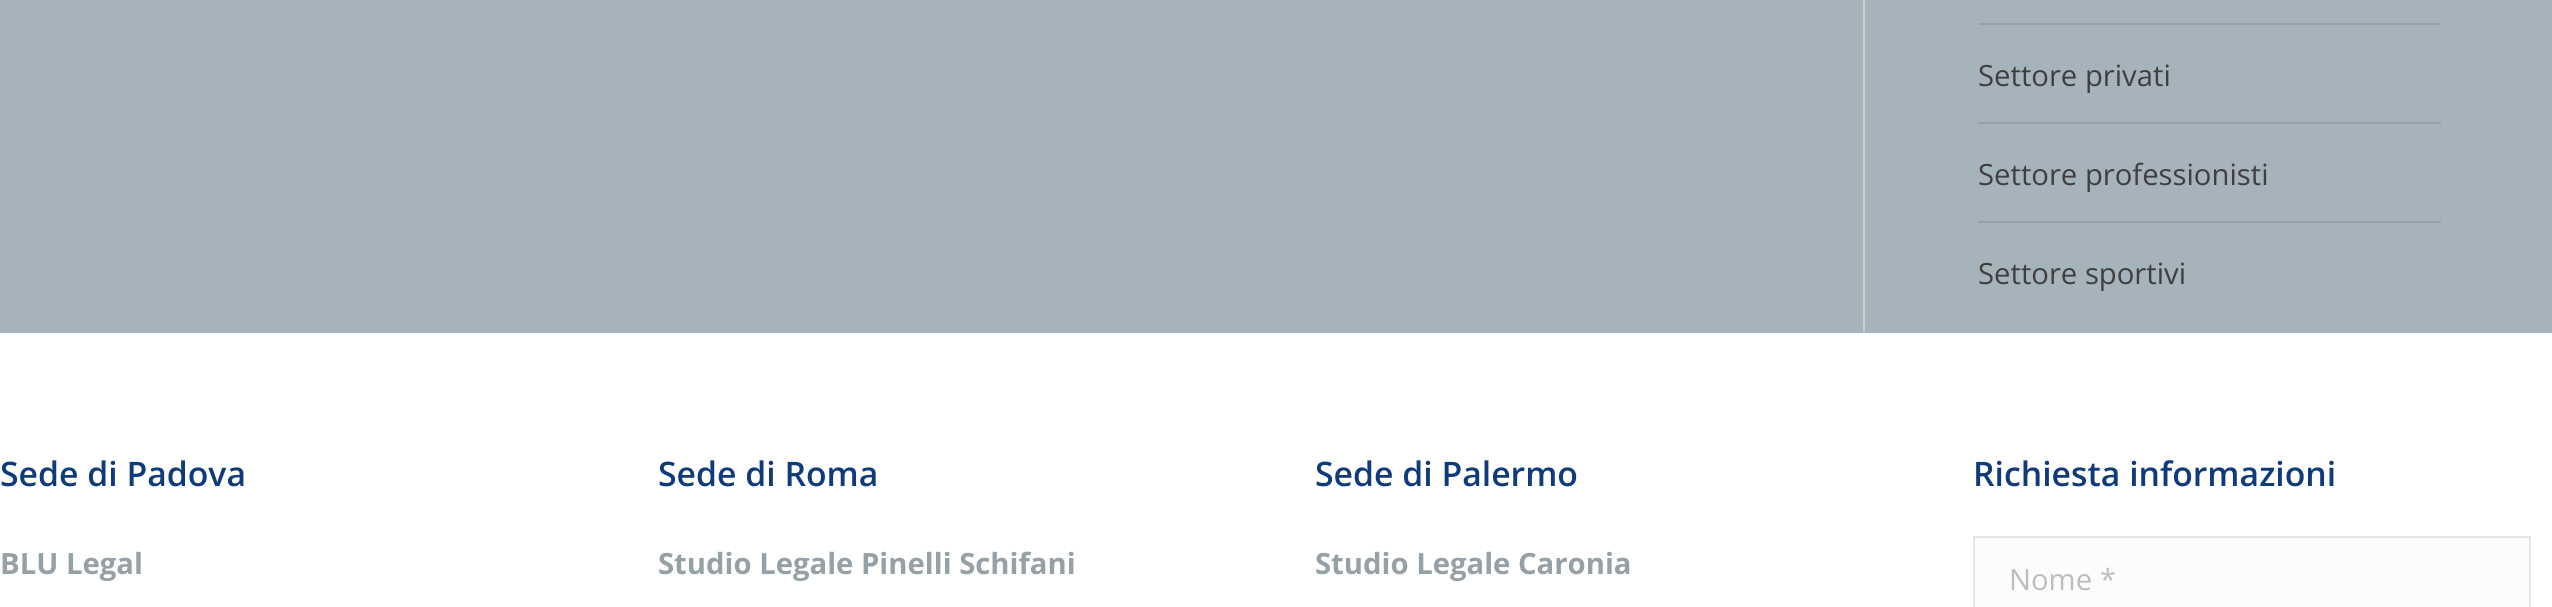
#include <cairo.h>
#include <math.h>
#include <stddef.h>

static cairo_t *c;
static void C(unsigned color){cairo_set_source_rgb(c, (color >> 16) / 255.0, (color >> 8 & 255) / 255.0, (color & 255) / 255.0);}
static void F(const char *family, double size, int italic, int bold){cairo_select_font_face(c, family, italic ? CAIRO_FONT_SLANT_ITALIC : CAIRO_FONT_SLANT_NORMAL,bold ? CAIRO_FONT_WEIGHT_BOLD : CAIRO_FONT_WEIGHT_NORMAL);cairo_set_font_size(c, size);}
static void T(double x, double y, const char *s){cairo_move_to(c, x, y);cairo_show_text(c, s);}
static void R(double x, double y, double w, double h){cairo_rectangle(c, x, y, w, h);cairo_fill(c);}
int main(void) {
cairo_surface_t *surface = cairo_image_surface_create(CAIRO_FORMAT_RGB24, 2552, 607);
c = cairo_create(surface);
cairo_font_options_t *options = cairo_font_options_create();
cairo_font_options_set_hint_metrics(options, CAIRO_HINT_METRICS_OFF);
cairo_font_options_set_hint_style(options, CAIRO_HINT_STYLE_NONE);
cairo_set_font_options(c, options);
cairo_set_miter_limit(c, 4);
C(0xa6b3bb);
cairo_paint(c);
C(0xcccccc);
R(1863,0,2,333);
C(0x97a2a8);
R(1978,23,463,2);
F("Open Sans",29.25,0,0);
C(0x3f3f3f);
T(1978,86,"Settore privati");
C(0x97a2a8);
R(1978,122,463,2);
C(0x3f3f3f);
T(1978,185,"Settore professionisti");
C(0x97a2a8);
R(1978,221,463,2);
C(0x3f3f3f);
T(1978,284,"Settore sportivi");
C(0xffffff);
R(0,333,2552,274);
F("Open Sans SemiBold",33.75,0,0);
C(0x103b7a);
T(0,486,"Sede di Padova");
F("Open Sans",29.25,0,1);
C(0x95a0a7);
T(0,574,"BLU Legal");
F("Open Sans SemiBold",33.75,0,0);
C(0x103b7a);
T(658,486,"Sede di Roma");
F("Open Sans",29.25,0,1);
C(0x95a0a7);
T(658,574,"Studio Legale Pinelli Schifani");
F("Open Sans SemiBold",33.75,0,0);
C(0x103b7a);
T(1315,486,"Sede di Palermo");
F("Open Sans",29.25,0,1);
C(0x95a0a7);
T(1315,574,"Studio Legale Caronia");
F("Open Sans SemiBold",33.75,0,0);
C(0x103b7a);
T(1973,486,"Richiesta informazioni");
C(0xfcfcfc);
cairo_rectangle(c,1974,537,556,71);
cairo_fill_preserve(c);
C(0xe4e5e7);
cairo_stroke(c);
F("Open Sans",29.25,0,0);
C(0xbabdc1);
T(2009,590,"Nome *");
cairo_surface_write_to_png(surface, "o.png");
cairo_font_options_destroy(options);
cairo_destroy(c);
cairo_surface_destroy(surface);
return 0;
}
